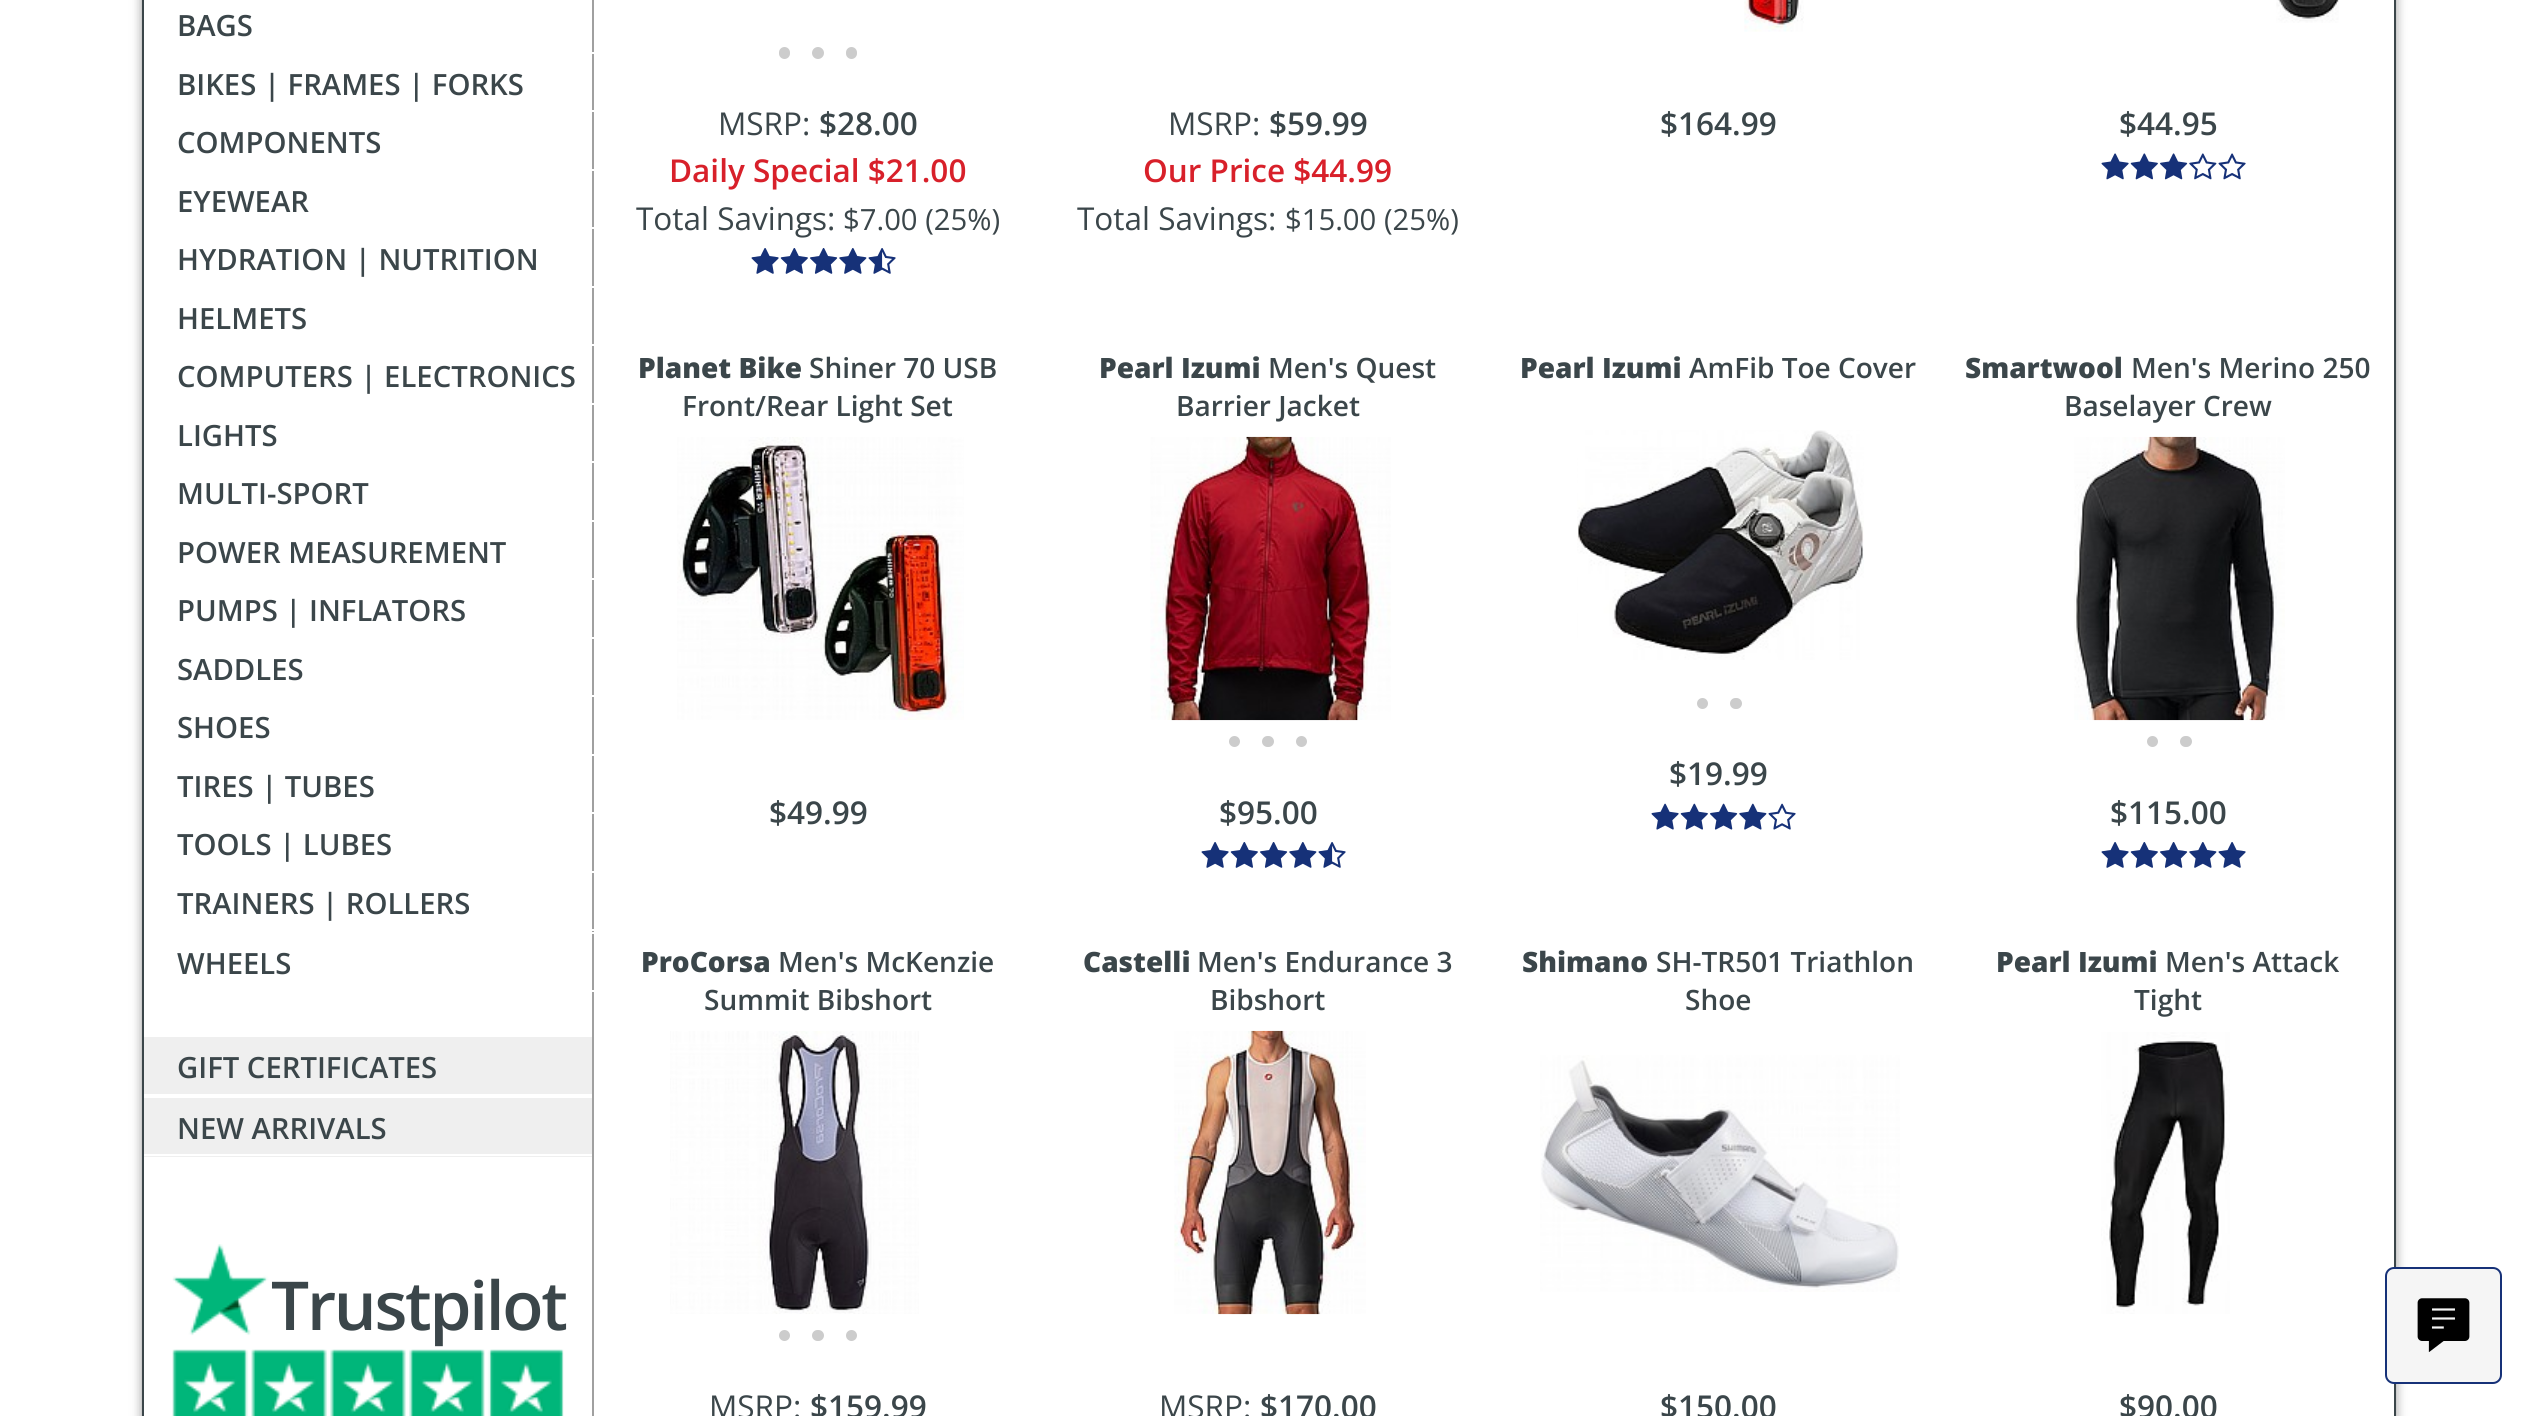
#include <cairo.h>
#include <math.h>
#include <stddef.h>

static cairo_t *c;
static void C(unsigned color){cairo_set_source_rgb(c, (color >> 16) / 255.0, (color >> 8 & 255) / 255.0, (color & 255) / 255.0);}
static void F(const char *family, double size, int italic, int bold){cairo_select_font_face(c, family, italic ? CAIRO_FONT_SLANT_ITALIC : CAIRO_FONT_SLANT_NORMAL,bold ? CAIRO_FONT_WEIGHT_BOLD : CAIRO_FONT_WEIGHT_NORMAL);cairo_set_font_size(c, size);}
static void T(double x, double y, const char *s){cairo_move_to(c, x, y);cairo_show_text(c, s);}
static void L(double x, double y, const char *s, double letter, double word){cairo_move_to(c, x, y);while (*s) {char ch[5] = {0};int n = 0;do ch[n++] = *s++; while ((*s & 0xC0) == 0x80);cairo_show_text(c, ch);cairo_rel_move_to(c, letter + word * (*ch == ' '), 0);}}
static void R(double x, double y, double w, double h){cairo_rectangle(c, x, y, w, h);cairo_fill(c);}
static void Q(double x, double y, double w, double h, double r){cairo_new_sub_path(c);cairo_arc(c, x + w - r, y + h - r, r, 0, M_PI / 2);cairo_arc(c, x + r, y + h - r, r, M_PI / 2, M_PI);cairo_arc(c, x + r, y + r, r, M_PI, 1.5 * M_PI);cairo_arc(c, x + w - r, y + r, r, 1.5 * M_PI, 2 * M_PI);cairo_close_path(c);}
static void S(double x, double y, double w, double h, double r, double blur, double alpha){cairo_push_group_with_content(c, CAIRO_CONTENT_ALPHA);cairo_set_operator(c, CAIRO_OPERATOR_SOURCE);for (int i = 15; i >= -15 && fmin(w, h) + blur * i / 3 > 0; i -= 2) {double e = blur * i / 6;cairo_set_source_rgba(c, 0, 0, 0, alpha * erfc((i - 1) / 8.5) / 2);Q(x - e, y - e, w + 2 * e, h + 2 * e, fmax(0, fmin(r + e + blur * .6, fmin(w, h) / 2 + e)));cairo_fill(c);}cairo_pattern_t *soft = cairo_pop_group(c);cairo_mask(c, soft);cairo_pattern_destroy(soft);}
static void I(const char *path, double x, double y, double w, double h){cairo_surface_t *image = cairo_image_surface_create_from_png(path);cairo_save(c);cairo_set_source_surface(c, image, x, y);cairo_rectangle(c, x, y, w, h);cairo_fill(c);cairo_restore(c);cairo_surface_destroy(image);}
int main(void) {
cairo_surface_t *surface = cairo_image_surface_create(CAIRO_FORMAT_RGB24, 2534, 1416);
c = cairo_create(surface);
cairo_font_options_t *options = cairo_font_options_create();
cairo_font_options_set_hint_metrics(options, CAIRO_HINT_METRICS_OFF);
cairo_font_options_set_hint_style(options, CAIRO_HINT_STYLE_NONE);
cairo_set_font_options(c, options);
cairo_set_miter_limit(c, 4);
C(0xffffff);
cairo_paint(c);
cairo_save(c);
cairo_set_fill_rule(c,CAIRO_FILL_RULE_EVEN_ODD);
cairo_new_path(c);
cairo_move_to(c,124,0);
cairo_line_to(c,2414,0);
cairo_line_to(c,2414,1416);
cairo_line_to(c,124,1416);
cairo_close_path(c);
cairo_move_to(c,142,-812);
cairo_line_to(c,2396,-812);
cairo_line_to(c,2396,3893);
cairo_line_to(c,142,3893);
cairo_close_path(c);
cairo_clip(c);
C(0x000000);
S(142,-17,2254,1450,0,5.5,.4);
cairo_restore(c);
C(0x3b464a);
R(2394,0,2,1416);
R(142,0,2,1416);
C(0xa0a0a0);
R(592,0,2,1416);
C(0xffffff);
R(592,52,2,2);
F("Open Sans SemiBold",29.25,0,0);
C(0x3b464a);
T(177,36,"BAGS");
C(0xffffff);
R(592,110,2,2);
C(0x3b464a);
T(177,95,"BIKES | FRAMES | FORKS");
C(0xffffff);
R(592,169,2,2);
C(0x3b464a);
T(177,153,"COMPONENTS");
C(0xffffff);
R(592,227,2,2);
C(0x3b464a);
T(177,212,"EYEWEAR");
C(0xffffff);
R(592,286,2,2);
C(0x3b464a);
T(177,270,"HYDRATION | NUTRITION");
C(0xffffff);
R(592,344,2,2);
C(0x3b464a);
T(177,329,"HELMETS");
C(0xffffff);
R(592,403,2,2);
C(0x3b464a);
T(177,387,"COMPUTERS | ELECTRONICS");
C(0xffffff);
R(592,461,2,2);
C(0x3b464a);
T(177,446,"LIGHTS");
C(0xffffff);
R(592,520,2,2);
C(0x3b464a);
T(177,504,"MULTI-SPORT");
C(0xffffff);
R(592,578,2,2);
C(0x3b464a);
T(177,563,"POWER MEASUREMENT");
C(0xffffff);
R(592,637,2,2);
C(0x3b464a);
T(177,621,"PUMPS | INFLATORS");
C(0xffffff);
R(592,695,2,2);
C(0x3b464a);
T(177,680,"SADDLES");
C(0xffffff);
R(592,754,2,2);
C(0x3b464a);
T(177,738,"SHOES");
C(0xffffff);
R(592,812,2,2);
C(0x3b464a);
T(177,797,"TIRES | TUBES");
C(0xffffff);
R(592,871,2,2);
C(0x3b464a);
T(177,855,"TOOLS | LUBES");
C(0xffffff);
R(592,929,2,2);
C(0x3b464a);
T(177,914,"TRAINERS | ROLLERS");
C(0xffffff);
R(592,932,2,2);
R(592,990,2,2);
C(0x3b464a);
T(177,974,"WHEELS");
C(0xefefef);
R(144,1037,448,57);
C(0x3b464a);
T(177,1078,"GIFT CERTIFICATES");
C(0xefefef);
R(144,1098,448,59);
C(0xffffff);
R(144,1154,448,2);
C(0x3b464a);
T(177,1139,"NEW ARRIVALS");
I("1.png",172,1244,392,172);
F("Open Sans SemiBold",67.5,0,0);
L(271,1330,"Trustpilot",-2.25,0);
C(0xcccccc);
Q(779,47,11,12,5.5);
cairo_fill(c);
cairo_arc(c,818,53,6,0,2 * M_PI);
cairo_fill(c);
Q(846,47,11,12,5.5);
cairo_fill(c);
F("Open Sans",31.5,0,0);
C(0x3b464a);
T(718,135,"MSRP:");
F("Open Sans SemiBold",31.5,0,0);
T(819,135,"$28.00");
C(0xd8202a);
T(669,182,"Daily Special $21.00");
F("Open Sans",31.5,0,0);
C(0x3b464a);
T(636,230,"Total Savings:");
F("Open Sans",29.25,0,0);
T(843,230,"$7.00 (25%)");
I("2.png",751,248,28,26);
I("3.png",780,248,28,26);
I("4.png",810,248,28,26);
I("5.png",839,248,28,26);
I("6.png",868,248,28,26);
F("Open Sans",31.5,0,0);
T(1168,135,"MSRP:");
F("Open Sans SemiBold",31.5,0,0);
T(1269,135,"$59.99");
C(0xd8202a);
T(1143,182,"Our Price $44.99");
F("Open Sans",31.5,0,0);
C(0x3b464a);
T(1077,230,"Total Savings:");
F("Open Sans",29.25,0,0);
T(1285,230,"$15.00 (25%)");
I("7.png",1744,0,60,32);
F("Open Sans SemiBold",31.5,0,0);
T(1660,135,"$164.99");
I("8.png",2276,0,63,23);
T(2119,135,"$44.95");
I("9.png",2101,153,28,27);
I("10.png",2130,153,28,27);
I("11.png",2160,153,28,27);
I("12.png",2189,153,28,27);
I("13.png",2218,153,28,27);
F("Open Sans ExtraBold",28,0,0);
T(638,378,"Planet Bike");
F("Open Sans SemiBold",28,0,0);
T(809,378,"Shiner 70 USB");
T(682,416,"Front/Rear Light Set");
I("14.png",677,437,287,283);
F("Open Sans SemiBold",31.5,0,0);
T(769,824,"$49.99");
F("Open Sans ExtraBold",28,0,0);
T(1099,378,"Pearl Izumi");
F("Open Sans SemiBold",28,0,0);
T(1268,378,"Men's Quest");
T(1176,416,"Barrier Jacket");
I("15.png",1150,436,241,285);
C(0xcccccc);
cairo_arc(c,1234.5,741.5,5.5,0,2 * M_PI);
cairo_fill(c);
Q(1262,736,12,11,5.5);
cairo_fill(c);
cairo_arc(c,1301.5,741.5,5.5,0,2 * M_PI);
cairo_fill(c);
F("Open Sans SemiBold",31.5,0,0);
C(0x3b464a);
T(1219,824,"$95.00");
I("2.png",1201,842,28,26);
I("3.png",1230,842,28,26);
I("4.png",1260,842,28,26);
I("5.png",1289,842,28,26);
I("6.png",1318,842,28,26);
F("Open Sans ExtraBold",28,0,0);
T(1520,378,"Pearl Izumi");
F("Open Sans SemiBold",28,0,0);
T(1689,378,"AmFib Toe Cover");
I("16.png",1577,430,287,230);
C(0xcccccc);
cairo_arc(c,1702.5,703.5,5.5,0,2 * M_PI);
cairo_fill(c);
Q(1730,698,12,11,5.5);
cairo_fill(c);
F("Open Sans SemiBold",31.5,0,0);
C(0x3b464a);
T(1669,785,"$19.99");
I("17.png",1651,803,28,27);
I("18.png",1680,803,28,27);
I("19.png",1710,803,28,27);
I("20.png",1739,803,28,27);
I("21.png",1768,803,28,27);
F("Open Sans ExtraBold",28,0,0);
T(1965,378,"Smartwool");
F("Open Sans SemiBold",28,0,0);
T(2131,378,"Men's Merino 250");
T(2064,416,"Baselayer Crew");
I("22.png",2074,436,211,285);
C(0xcccccc);
cairo_arc(c,2152.5,741.5,5.5,0,2 * M_PI);
cairo_fill(c);
Q(2180,736,12,11,5.5);
cairo_fill(c);
F("Open Sans SemiBold",31.5,0,0);
C(0x3b464a);
T(2110,824,"$115.00");
I("2.png",2101,842,28,26);
I("3.png",2130,842,28,26);
I("4.png",2160,842,28,26);
I("5.png",2189,842,28,26);
I("2.png",2218,842,28,26);
F("Open Sans ExtraBold",28,0,0);
T(641,972,"ProCorsa");
F("Open Sans SemiBold",28,0,0);
T(778,972,"Men's McKenzie");
T(704,1010,"Summit Bibshort");
I("23.png",670,1031,249,283);
C(0xcccccc);
cairo_arc(c,784.5,1335.5,5.5,0,2 * M_PI);
cairo_fill(c);
Q(812,1330,12,11,5.5);
cairo_fill(c);
cairo_arc(c,851.5,1335.5,5.5,0,2 * M_PI);
cairo_fill(c);
F("Open Sans",31.5,0,0);
C(0x3b464a);
T(709,1418,"MSRP:");
F("Open Sans SemiBold",31.5,0,0);
T(810,1418,"$159.99");
F("Open Sans ExtraBold",28,0,0);
T(1083,972,"Castelli");
F("Open Sans SemiBold",28,0,0);
T(1197,972,"Men's Endurance 3");
T(1210,1010,"Bibshort");
I("24.png",1174,1030,192,285);
F("Open Sans",31.5,0,0);
T(1159,1418,"MSRP:");
F("Open Sans SemiBold",31.5,0,0);
T(1260,1418,"$170.00");
F("Open Sans ExtraBold",28,0,0);
T(1522,972,"Shimano");
F("Open Sans SemiBold",28,0,0);
T(1656,972,"SH-TR501 Triathlon");
T(1685,1010,"Shoe");
I("25.png",1540,1055,360,237);
F("Open Sans SemiBold",31.5,0,0);
T(1660,1418,"$150.00");
F("Open Sans ExtraBold",28,0,0);
T(1996,972,"Pearl Izumi");
F("Open Sans SemiBold",28,0,0);
T(2165,972,"Men's Attack");
T(2134,1010,"Tight");
I("26.png",2101,1032,129,282);
F("Open Sans SemiBold",31.5,0,0);
T(2119,1418,"$90.00");
C(0xf5f5f5);
Q(2386,1268,115,115,8);
cairo_fill_preserve(c);
C(0x163178);
cairo_stroke(c);
I("27.png",2417,1298,53,54);
cairo_surface_write_to_png(surface, "o.png");
cairo_font_options_destroy(options);
cairo_destroy(c);
cairo_surface_destroy(surface);
return 0;
}
